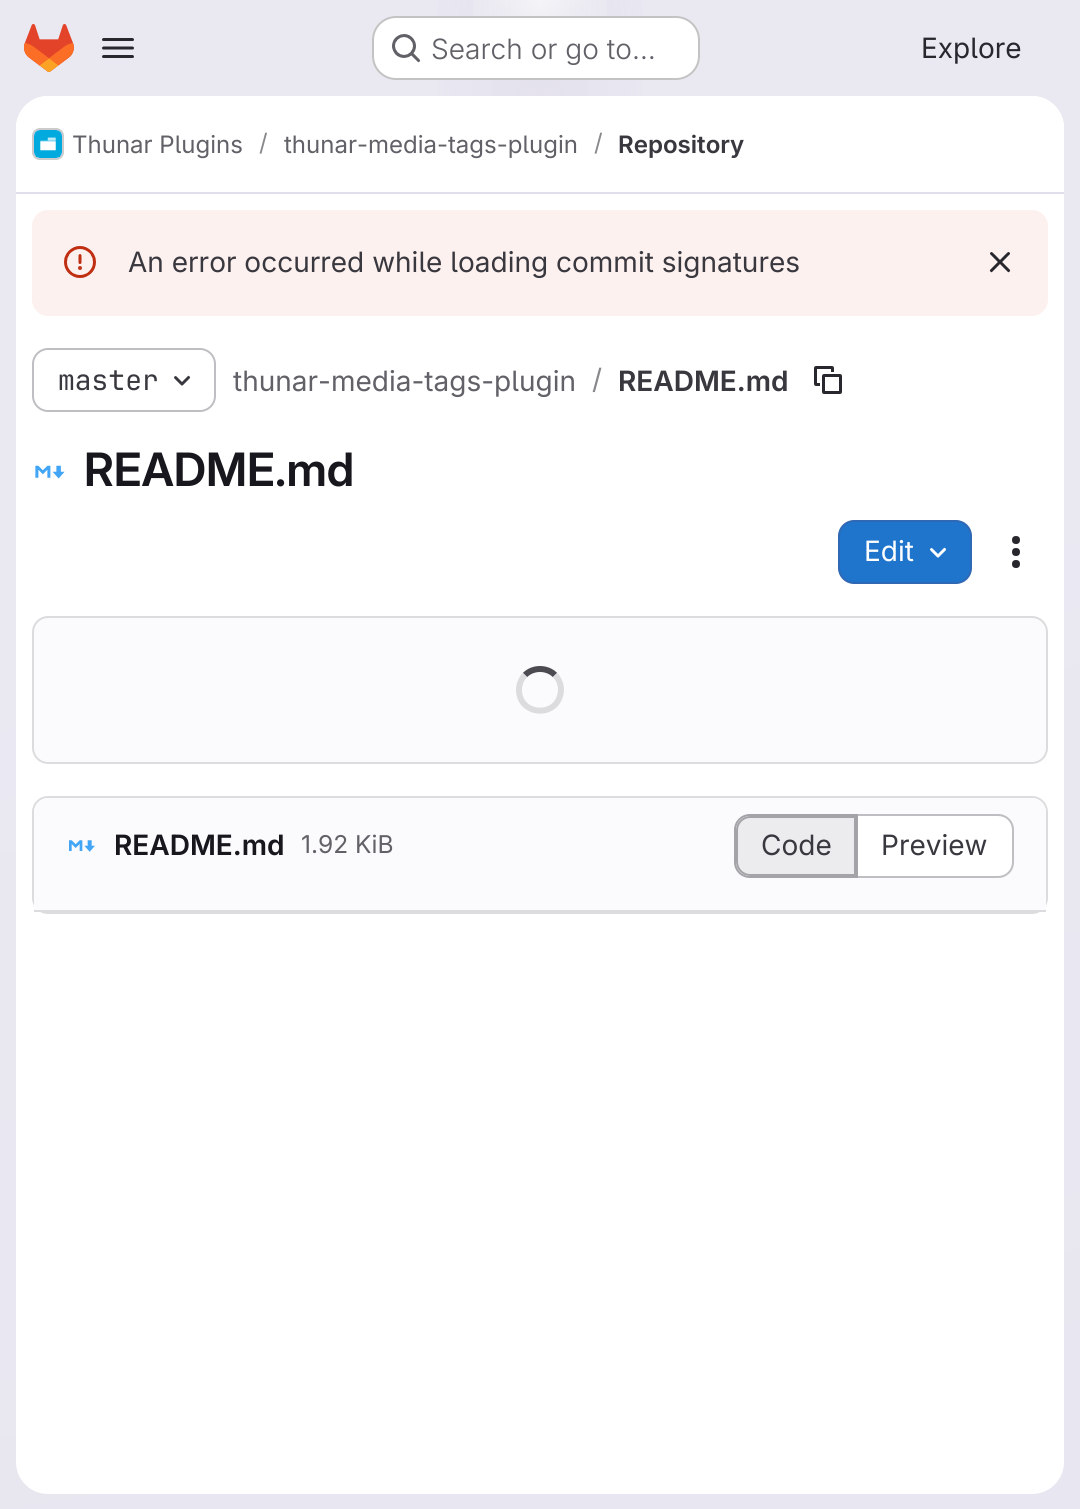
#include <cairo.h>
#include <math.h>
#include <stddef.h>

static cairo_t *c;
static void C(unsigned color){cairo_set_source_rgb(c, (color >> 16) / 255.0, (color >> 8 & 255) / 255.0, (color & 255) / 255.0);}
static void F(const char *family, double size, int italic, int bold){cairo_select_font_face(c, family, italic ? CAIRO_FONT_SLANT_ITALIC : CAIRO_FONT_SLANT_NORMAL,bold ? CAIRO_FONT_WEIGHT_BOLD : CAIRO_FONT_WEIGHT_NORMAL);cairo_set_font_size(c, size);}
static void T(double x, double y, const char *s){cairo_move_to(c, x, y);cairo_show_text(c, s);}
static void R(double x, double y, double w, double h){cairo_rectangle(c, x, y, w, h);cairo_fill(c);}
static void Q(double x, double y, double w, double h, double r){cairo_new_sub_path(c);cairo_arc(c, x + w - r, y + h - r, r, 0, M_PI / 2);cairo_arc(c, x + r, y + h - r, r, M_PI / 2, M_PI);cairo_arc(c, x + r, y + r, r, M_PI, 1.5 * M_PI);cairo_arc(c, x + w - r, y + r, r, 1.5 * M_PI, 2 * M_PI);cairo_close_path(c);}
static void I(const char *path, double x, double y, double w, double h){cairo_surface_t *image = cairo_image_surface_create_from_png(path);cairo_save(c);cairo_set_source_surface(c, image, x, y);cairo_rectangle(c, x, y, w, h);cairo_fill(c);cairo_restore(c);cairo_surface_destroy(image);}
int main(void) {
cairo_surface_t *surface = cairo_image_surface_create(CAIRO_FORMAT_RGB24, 1080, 1509);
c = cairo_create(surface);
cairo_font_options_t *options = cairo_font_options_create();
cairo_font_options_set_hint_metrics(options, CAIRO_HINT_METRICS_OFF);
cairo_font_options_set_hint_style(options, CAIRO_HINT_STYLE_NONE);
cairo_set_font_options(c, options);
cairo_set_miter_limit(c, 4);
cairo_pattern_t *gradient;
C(0xffffff);
cairo_paint(c);
gradient = cairo_pattern_create_linear(685,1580,395,-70);
cairo_pattern_add_color_stop_rgba(gradient,0,0.91,0.902,0.941,1);
cairo_pattern_add_color_stop_rgba(gradient,.7,0.918,0.914,0.949,1);
cairo_set_source(c,gradient);
cairo_pattern_destroy(gradient);
R(0,0,1080,1509);
gradient = cairo_pattern_create_radial(0,0,0,0,0,1);
cairo_pattern_set_matrix(gradient, &(cairo_matrix_t){1.0 / 540, 0, 0, 1.0 / 1510, -1.0 * 540 / 540, -1.0 * 0 / 1510});
cairo_pattern_add_color_stop_rgba(gradient,0,0.894,0.886,0.929,1);
cairo_pattern_add_color_stop_rgba(gradient,.26,0.894,0.886,0.929,0);
cairo_set_source(c,gradient);
cairo_pattern_destroy(gradient);
R(438,0,204,96);
gradient = cairo_pattern_create_radial(0,0,0,0,0,1);
cairo_pattern_set_matrix(gradient, &(cairo_matrix_t){1.0 / 540, 0, 0, 1.0 / 1510, -1.0 * 540 / 540, -1.0 * 0 / 1510});
cairo_pattern_add_color_stop_rgba(gradient,0,0.894,0.886,0.925,1);
cairo_pattern_add_color_stop_rgba(gradient,.19,0.894,0.886,0.925,0);
cairo_set_source(c,gradient);
cairo_pattern_destroy(gradient);
R(492,7,96,89);
gradient = cairo_pattern_create_radial(540,0,0,540,0,1604);
cairo_pattern_add_color_stop_rgba(gradient,0,1,1,1,.6);
cairo_pattern_add_color_stop_rgba(gradient,.05,1,1,1,0);
cairo_set_source(c,gradient);
cairo_pattern_destroy(gradient);
R(473,0,134,16);
I("1.png",24,24,50,48);
I("2.png",102,38,32,20);
C(0xffffff);
Q(372,16,328,64,24);
cairo_fill(c);
Q(373,17,326,62,23);
cairo_set_source_rgba(c,0.02,0.02,0.024,0.24);
cairo_stroke(c);
I("3.png",392,34,29,29);
F("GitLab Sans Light",28,0,0);
C(0x626168);
T(431,59,"Search or go to…");
F("GitLab Sans",28,0,0);
C(0x28272d);
T(921,58,"Explore");
C(0xffffff);
Q(16,96,1048,1398,32);
cairo_fill(c);
cairo_new_path(c);
cairo_move_to(c,48,96);
cairo_line_to(c,1032,96);
cairo_curve_to(c,1049.5,96,1064,110.5,1064,128);
cairo_line_to(c,1064,194);
cairo_line_to(c,16,194);
cairo_line_to(c,16,128);
cairo_curve_to(c,16,110.5,30.5,96,48,96);
cairo_close_path(c);
cairo_fill(c);
C(0xe1dfec);
R(16,192,1048,2);
Q(33,129,30,30,7);
C(0xdcdcde);
cairo_stroke(c);
I("4.png",34,130,28,28);
Q(33,129,30,30,7);
cairo_set_source_rgba(c,0.02,0.02,0.024,0.08);
cairo_stroke(c);
F("GitLab Sans",24,0,0);
C(0x626168);
T(72,153,"Thunar Plugins");
C(0x89888d);
T(259,151,"/");
C(0x626168);
T(284,153,"thunar-media-tags-plugin");
C(0x89888d);
T(594,151,"/");
F("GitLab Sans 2 SemiBold",24,0,0);
C(0x3a383f);
T(618,153,"Repository");
C(0xfcf1ef);
Q(32,210,1016,106,16);
cairo_fill(c);
I("5.png",64,246,32,32);
F("GitLab Sans",28,0,0);
C(0x3a383f);
T(128,272,"An error occurred while loading commit signatures");
I("6.png",989,252,22,21);
Q(33,349,182,62,15);
C(0xbfbfc3);
cairo_stroke(c);
F("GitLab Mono",28,0,0);
C(0x3a383f);
T(58,390,"master");
I("7.png",174,375,17,11);
F("GitLab Sans",28,0,0);
C(0x626168);
T(233,391,"thunar-media-tags-plugin");
C(0x89888d);
T(592,389,"/");
F("GitLab Sans 2 SemiBold",28,0,0);
C(0x3a383f);
T(618,391,"README.md");
I("8.png",814,366,28,28);
I("9.png",35,465,30,14);
F("GitLab Sans SemiBold",46,0,0);
C(0x18171d);
T(84,486,"README.md");
C(0x1f75cb);
Q(839,521,132,62,15);
cairo_fill_preserve(c);
C(0x2f68b4);
cairo_stroke(c);
F("GitLab Sans",28,0,0);
C(0xffffff);
T(864,561,"Edit");
I("10.png",930,547,17,11);
I("11.png",1012,536,8,32);
C(0xfbfafd);
Q(33,617,1014,146,15);
cairo_fill_preserve(c);
C(0xdcdcde);
cairo_stroke(c);
cairo_new_path(c);
cairo_move_to(c,525,675);
cairo_curve_to(c,533,667,547,667,555,675);
C(0x4c4b51);
cairo_set_line_width(c,6);
cairo_stroke(c);
cairo_new_path(c);
cairo_move_to(c,555,675);
cairo_curve_to(c,560,680,562,687.5,560.5,694);
cairo_curve_to(c,555.5,718.5,519,715,519,690);
cairo_curve_to(c,519,684.5,521,679,525,675);
C(0xdcdcde);
cairo_stroke(c);
Q(33,797,1014,116,15);
cairo_set_line_width(c,2);
cairo_stroke(c);
C(0xfbfafd);
cairo_new_path(c);
cairo_move_to(c,48,798);
cairo_line_to(c,1032,798);
cairo_curve_to(c,1039.5,798,1046,804.5,1046,812);
cairo_line_to(c,1046,912);
cairo_line_to(c,34,912);
cairo_line_to(c,34,812);
cairo_curve_to(c,34,804.5,40.5,798,48,798);
cairo_close_path(c);
cairo_fill(c);
C(0xdcdcde);
R(34,910,1012,2);
I("12.png",69,840,26,12);
F("GitLab Sans 2 SemiBold",28,0,0);
C(0x18171d);
T(114,855,"README.md");
F("GitLab Sans",24.5,0,0);
C(0x626168);
T(301,853,"1.92 KiB");
C(0xececef);
cairo_new_path(c);
cairo_move_to(c,750,817);
cairo_line_to(c,855,817);
cairo_line_to(c,855,875);
cairo_line_to(c,750,875);
cairo_curve_to(c,743,875,737,869,737,862);
cairo_line_to(c,737,830);
cairo_curve_to(c,737,823,743,817,750,817);
cairo_close_path(c);
cairo_fill_preserve(c);
C(0xa4a3a8);
cairo_stroke(c);
cairo_set_fill_rule(c,CAIRO_FILL_RULE_EVEN_ODD);
cairo_new_path(c);
cairo_move_to(c,750,814);
cairo_line_to(c,856,814);
cairo_line_to(c,856,878);
cairo_line_to(c,750,878);
cairo_curve_to(c,741,878,734,871,734,862);
cairo_line_to(c,734,830);
cairo_curve_to(c,734,821,741,814,750,814);
cairo_close_path(c);
cairo_move_to(c,750,816);
cairo_line_to(c,856,816);
cairo_line_to(c,856,876);
cairo_line_to(c,750,876);
cairo_curve_to(c,742,876,736,870,736,862);
cairo_line_to(c,736,830);
cairo_curve_to(c,736,822,742,816,750,816);
cairo_close_path(c);
cairo_fill(c);
F("GitLab Sans",28,0,0);
C(0x3a383f);
T(761,855,"Code");
C(0xffffff);
cairo_new_path(c);
cairo_move_to(c,858,816);
cairo_line_to(c,998,816);
cairo_curve_to(c,1005.5,816,1012,822.5,1012,830);
cairo_line_to(c,1012,862);
cairo_curve_to(c,1012,869.5,1005.5,876,998,876);
cairo_line_to(c,858,876);
cairo_close_path(c);
cairo_fill(c);
C(0xbfbfc3);
cairo_new_path(c);
cairo_move_to(c,858,814);
cairo_line_to(c,998,814);
cairo_curve_to(c,1007,814,1014,821,1014,830);
cairo_line_to(c,1014,862);
cairo_curve_to(c,1014,871,1007,878,998,878);
cairo_line_to(c,858,878);
cairo_close_path(c);
cairo_move_to(c,858,816);
cairo_line_to(c,998,816);
cairo_curve_to(c,1006,816,1012,822,1012,830);
cairo_line_to(c,1012,862);
cairo_curve_to(c,1012,870,1006,876,998,876);
cairo_line_to(c,858,876);
cairo_close_path(c);
cairo_fill(c);
C(0xa4a3a8);
R(856,814,2,64);
C(0x3a383f);
T(881,855,"Preview");
cairo_surface_write_to_png(surface, "o.png");
cairo_font_options_destroy(options);
cairo_destroy(c);
cairo_surface_destroy(surface);
return 0;
}
